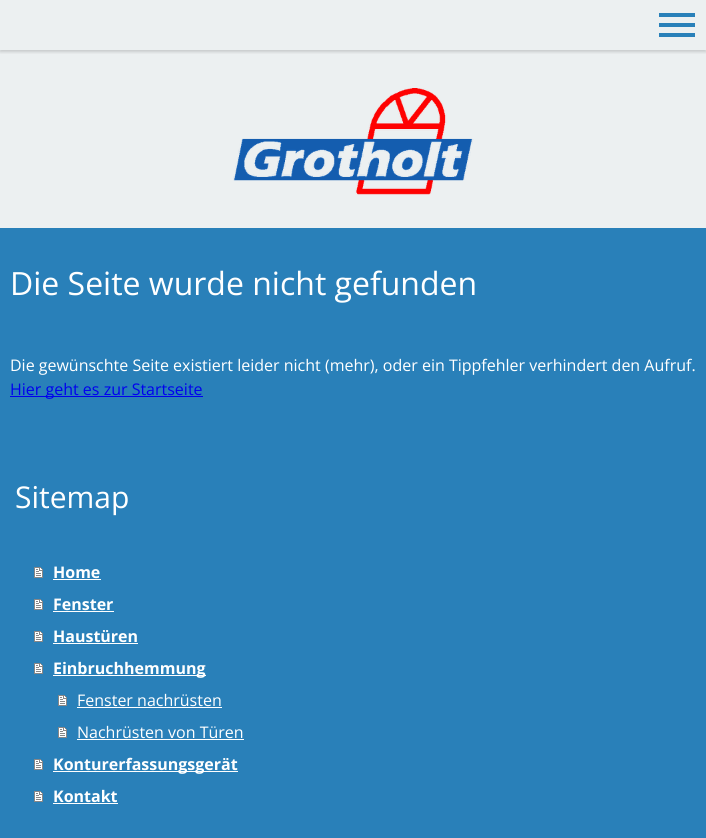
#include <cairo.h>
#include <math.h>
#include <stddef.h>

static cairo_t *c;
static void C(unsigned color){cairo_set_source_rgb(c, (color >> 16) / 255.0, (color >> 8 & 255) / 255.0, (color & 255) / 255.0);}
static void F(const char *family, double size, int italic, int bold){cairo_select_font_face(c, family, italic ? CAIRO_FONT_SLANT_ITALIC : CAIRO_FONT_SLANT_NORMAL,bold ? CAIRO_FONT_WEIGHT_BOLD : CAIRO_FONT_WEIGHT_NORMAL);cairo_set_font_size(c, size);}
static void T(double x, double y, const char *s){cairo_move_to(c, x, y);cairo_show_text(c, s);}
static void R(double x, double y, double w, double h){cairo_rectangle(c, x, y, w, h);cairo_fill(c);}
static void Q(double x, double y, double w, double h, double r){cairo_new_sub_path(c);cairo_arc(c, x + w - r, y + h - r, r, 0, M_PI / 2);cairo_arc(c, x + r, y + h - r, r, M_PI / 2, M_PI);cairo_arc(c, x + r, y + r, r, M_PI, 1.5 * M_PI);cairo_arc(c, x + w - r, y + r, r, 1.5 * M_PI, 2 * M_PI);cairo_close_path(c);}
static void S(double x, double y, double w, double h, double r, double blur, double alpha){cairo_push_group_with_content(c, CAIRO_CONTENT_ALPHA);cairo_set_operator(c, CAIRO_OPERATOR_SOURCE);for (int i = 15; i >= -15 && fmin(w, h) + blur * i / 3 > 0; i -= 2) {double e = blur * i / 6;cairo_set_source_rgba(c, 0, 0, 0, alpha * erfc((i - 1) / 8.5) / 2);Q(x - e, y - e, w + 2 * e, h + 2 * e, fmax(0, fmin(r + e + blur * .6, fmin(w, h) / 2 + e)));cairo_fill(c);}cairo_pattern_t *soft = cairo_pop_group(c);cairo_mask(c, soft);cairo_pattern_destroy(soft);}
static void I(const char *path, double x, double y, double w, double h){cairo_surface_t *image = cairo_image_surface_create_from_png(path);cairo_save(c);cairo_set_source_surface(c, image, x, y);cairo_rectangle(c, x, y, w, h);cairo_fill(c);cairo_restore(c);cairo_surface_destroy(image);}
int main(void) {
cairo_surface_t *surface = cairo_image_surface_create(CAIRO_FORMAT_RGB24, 706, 838);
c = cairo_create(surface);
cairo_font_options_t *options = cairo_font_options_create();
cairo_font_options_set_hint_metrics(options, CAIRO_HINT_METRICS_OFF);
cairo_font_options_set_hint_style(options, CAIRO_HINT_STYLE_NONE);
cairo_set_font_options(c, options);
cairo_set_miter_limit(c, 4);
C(0xecf0f1);
cairo_paint(c);
cairo_save(c);
cairo_rectangle(c,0,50,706,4);
cairo_clip(c);
C(0x000000);
S(0,2,706,50,0,1.5,.16);
cairo_restore(c);
C(0x2980b9);
R(659,23,36,4);
R(659,13,36,4);
R(659,33,36,4);
I("1.png",233,88,241,107);
R(0,228,706,610);
F("Open Sans",32,0,0);
C(0xffffff);
T(10,295,"Die Seite wurde nicht gefunden");
F("Open Sans",16,0,0);
T(10,371,"Die gewünschte Seite existiert leider nicht (mehr), oder ein Tippfehler verhindert den Aufruf.");
C(0x0000ee);
R(10,396,193,1);
T(10,395,"Hier geht es zur Startseite");
F("Open Sans",30,0,0);
C(0xffffff);
T(15,508,"Sitemap");
I("2.png",34,567,9,11);
F("Open Sans",16,0,1);
T(53,578,"Home");
R(53,579,48,1);
I("2.png",34,599,9,11);
T(53,610,"Fenster");
R(53,611,61,1);
I("2.png",34,631,9,11);
T(53,642,"Haustüren");
R(53,643,85,1);
I("2.png",34,663,9,11);
R(53,675,153,1);
T(53,674,"Einbruchhemmung");
I("2.png",58,695,9,11);
F("Open Sans",16,0,0);
T(77,706,"Fenster nachrüsten");
R(77,707,145,1);
I("2.png",58,727,9,11);
T(77,738,"Nachrüsten von Türen");
R(77,739,167,1);
I("2.png",34,759,9,11);
R(53,771,185,1);
F("Open Sans",16,0,1);
T(53,770,"Konturerfassungsgerät");
I("2.png",34,791,9,11);
T(53,802,"Kontakt");
R(53,803,65,1);
cairo_surface_write_to_png(surface, "o.png");
cairo_font_options_destroy(options);
cairo_destroy(c);
cairo_surface_destroy(surface);
return 0;
}
